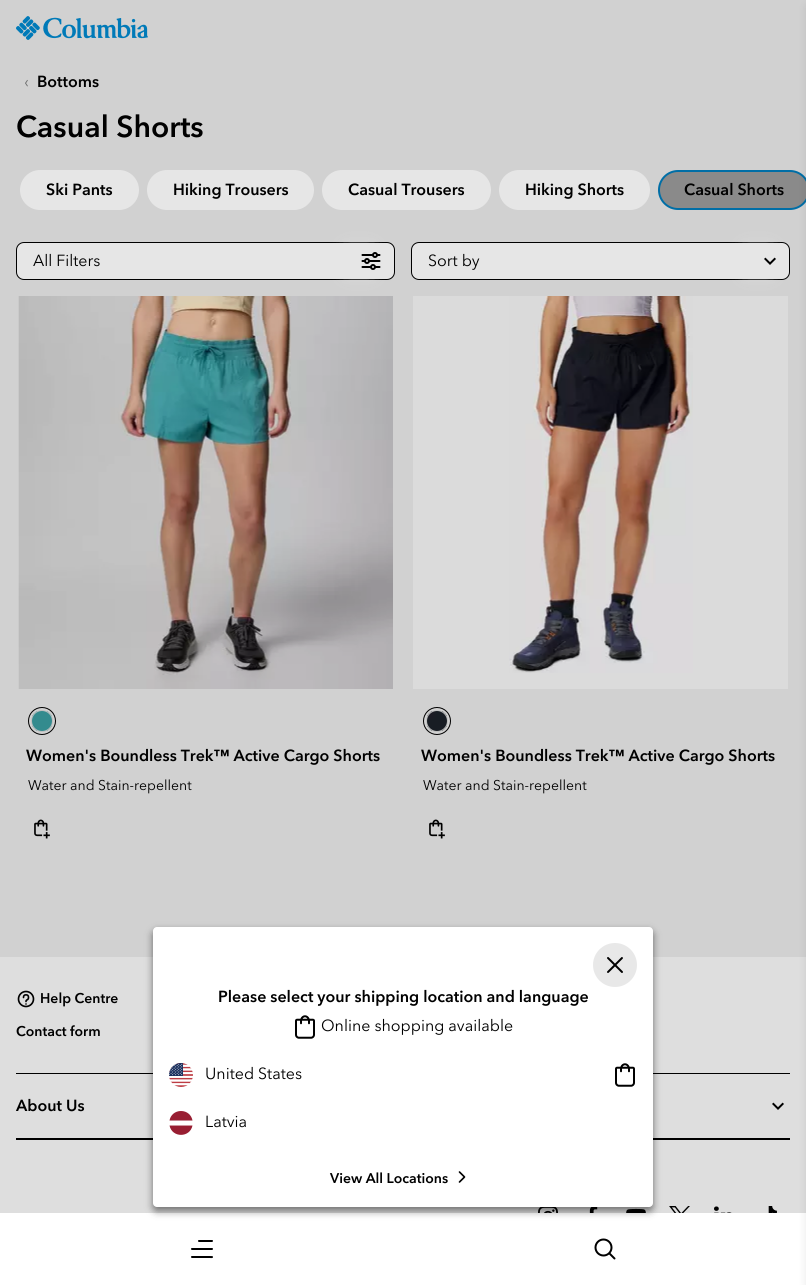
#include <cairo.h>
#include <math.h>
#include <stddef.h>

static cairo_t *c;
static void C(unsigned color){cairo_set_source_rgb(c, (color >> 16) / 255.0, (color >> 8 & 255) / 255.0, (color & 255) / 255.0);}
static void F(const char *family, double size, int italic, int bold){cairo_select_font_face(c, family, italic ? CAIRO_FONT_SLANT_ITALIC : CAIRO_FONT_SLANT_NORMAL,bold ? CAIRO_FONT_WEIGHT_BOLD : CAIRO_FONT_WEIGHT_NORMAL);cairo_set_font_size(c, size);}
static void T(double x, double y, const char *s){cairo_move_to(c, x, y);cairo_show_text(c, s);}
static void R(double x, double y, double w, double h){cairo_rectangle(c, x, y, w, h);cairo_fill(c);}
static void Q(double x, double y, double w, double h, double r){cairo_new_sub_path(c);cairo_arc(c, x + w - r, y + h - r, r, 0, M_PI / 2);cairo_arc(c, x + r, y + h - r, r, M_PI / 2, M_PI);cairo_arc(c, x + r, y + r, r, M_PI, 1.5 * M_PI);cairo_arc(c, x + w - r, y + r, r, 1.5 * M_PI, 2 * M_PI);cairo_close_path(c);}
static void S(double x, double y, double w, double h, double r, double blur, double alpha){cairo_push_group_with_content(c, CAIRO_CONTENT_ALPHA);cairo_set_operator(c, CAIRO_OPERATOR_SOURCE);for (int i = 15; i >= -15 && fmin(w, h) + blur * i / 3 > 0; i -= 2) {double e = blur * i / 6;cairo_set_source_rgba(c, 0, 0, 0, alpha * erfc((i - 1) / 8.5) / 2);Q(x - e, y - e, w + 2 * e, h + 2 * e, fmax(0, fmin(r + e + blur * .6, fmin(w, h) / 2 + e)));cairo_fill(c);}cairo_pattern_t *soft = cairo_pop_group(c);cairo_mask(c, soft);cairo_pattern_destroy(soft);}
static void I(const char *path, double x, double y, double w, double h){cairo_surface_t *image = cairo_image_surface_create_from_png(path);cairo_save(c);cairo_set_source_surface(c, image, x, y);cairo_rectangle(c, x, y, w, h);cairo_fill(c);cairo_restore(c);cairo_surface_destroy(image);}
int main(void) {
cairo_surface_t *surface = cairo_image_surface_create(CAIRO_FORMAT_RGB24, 806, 1285);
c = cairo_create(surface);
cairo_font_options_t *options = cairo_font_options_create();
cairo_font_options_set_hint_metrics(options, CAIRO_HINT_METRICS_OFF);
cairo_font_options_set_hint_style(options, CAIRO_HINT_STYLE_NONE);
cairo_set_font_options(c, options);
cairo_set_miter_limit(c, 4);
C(0xd1d1d1);
cairo_paint(c);
C(0xffffff);
R(0,1213,806,72);
C(0x8a8a8a);
Q(659,171,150,38,19);
cairo_fill_preserve(c);
C(0x006ea6);
cairo_stroke(c);
C(0xdedede);
R(0,957,806,256);
C(0x141515);
S(806,4,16,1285,4,4,.1);
I("1.png",191,1240,22,19);
I("2.png",594,1238,22,22);
I("3.png",16,16,132,24);
F("Avenir Next",16,0,0);
C(0x6e6f6f);
T(24,87,"‹");
F("Avenir Next SemiBold",16,0,0);
C(0x000000);
T(37,87,"Bottoms");
F("Avenir Next SemiBold",30,0,0);
T(16,137,"Casual Shorts");
C(0xe6e6e6);
Q(21,171,117,38,19);
cairo_fill_preserve(c);
cairo_stroke(c);
F("Avenir Next SemiBold",16,0,0);
C(0x000000);
T(46,195,"Ski Pants");
C(0xe6e6e6);
Q(148,171,165,38,19);
cairo_fill_preserve(c);
cairo_stroke(c);
C(0x000000);
T(173,195,"Hiking Trousers");
C(0xe6e6e6);
Q(323,171,167,38,19);
cairo_fill_preserve(c);
cairo_stroke(c);
C(0x000000);
T(348,195,"Casual Trousers");
C(0xe6e6e6);
Q(500,171,149,38,19);
cairo_fill_preserve(c);
cairo_stroke(c);
C(0x000000);
T(525,195,"Hiking Shorts");
T(684,195,"Casual Shorts");
C(0xe6e6e6);
Q(16.5,242.5,378,37,7.5);
cairo_fill_preserve(c);
C(0x000000);
cairo_set_line_width(c,1);
cairo_stroke(c);
F("Avenir Next",16,0,0);
T(33,266,"All Filters");
cairo_save(c);
cairo_set_fill_rule(c,CAIRO_FILL_RULE_EVEN_ODD);
cairo_new_path(c);
cairo_move_to(c,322,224);
cairo_line_to(c,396,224);
cairo_line_to(c,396,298);
cairo_line_to(c,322,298);
cairo_close_path(c);
cairo_move_to(c,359,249);
cairo_line_to(c,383,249);
cairo_line_to(c,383,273);
cairo_line_to(c,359,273);
cairo_close_path(c);
cairo_clip(c);
C(0xe6e6e6);
S(347,249,24,24,0,8,1);
cairo_restore(c);
I("4.png",361,252,20,18);
C(0xe6e6e6);
Q(411.5,242.5,378,37,7.5);
cairo_fill_preserve(c);
C(0x000000);
cairo_stroke(c);
T(428,266,"Sort by");
cairo_save(c);
cairo_set_fill_rule(c,CAIRO_FILL_RULE_EVEN_ODD);
cairo_new_path(c);
cairo_move_to(c,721,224);
cairo_line_to(c,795,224);
cairo_line_to(c,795,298);
cairo_line_to(c,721,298);
cairo_close_path(c);
cairo_move_to(c,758,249);
cairo_line_to(c,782,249);
cairo_line_to(c,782,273);
cairo_line_to(c,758,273);
cairo_close_path(c);
cairo_clip(c);
C(0xe6e6e6);
S(746,249,24,24,0,8,1);
cairo_restore(c);
I("5.png",764,257,12,8);
C(0xdbdbdb);
R(18,296,1,393);
I("6.png",18,296,375,393);
cairo_arc(c,42,721,13.5,0,2 * M_PI);
C(0x000000);
cairo_stroke(c);
I("7.png",32,711,20,20);
cairo_arc(c,42,721,10.5,0,2 * M_PI);
C(0xbebfbf);
cairo_stroke(c);
F("Avenir Next SemiBold",16,0,0);
C(0x000000);
T(26,761,"Women's Boundless Trek™ Active Cargo Shorts");
F("Avenir Next",14,0,0);
T(28,790,"Water and Stain-repellent");
I("8.png",34,819,16,20);
C(0xdbdbdb);
R(413,296,375,393);
I("9.png",509,296,184,377);
cairo_arc(c,437,721,13.5,0,2 * M_PI);
C(0x000000);
cairo_stroke(c);
I("10.png",427,711,20,20);
cairo_arc(c,437,721,10.5,0,2 * M_PI);
C(0xbebfbf);
cairo_stroke(c);
F("Avenir Next SemiBold",16,0,0);
C(0x000000);
T(421,761,"Women's Boundless Trek™ Active Cargo Shorts");
F("Avenir Next",14,0,0);
T(423,790,"Water and Stain-repellent");
I("8.png",429,819,16,20);
R(16,1073,774,1);
I("11.png",17,990,18,18);
F("Avenir Next SemiBold",14,0,0);
T(40,1003,"Help Centre");
T(16,1036,"Contact form");
R(16,1138,774,2);
F("Avenir Next SemiBold",16,0,0);
T(16,1111,"About Us");
I("12.png",772,1102,12,8);
I("13.png",538,1207,20,6);
I("14.png",589,1207,9,6);
I("15.png",626,1208,20,5);
I("16.png",669,1206,21,7);
I("17.png",714,1206,18,7);
I("18.png",768,1206,9,7);
C(0x000000);
S(153,931,500,280,4,4,.5);
C(0xffffff);
Q(153,927,500,280,4);
cairo_fill(c);
C(0xe8e8e8);
cairo_arc(c,615,965,22,0,2 * M_PI);
cairo_fill(c);
I("19.png",607,957,16,16);
C(0x000000);
T(218,1002,"Please select your shipping location and language");
I("20.png",295,1015,20,24);
F("Avenir Next",16,0,0);
T(321,1031,"Online shopping available");
I("21.png",169,1063,24,24);
T(205,1079,"United States");
I("20.png",615,1063,20,24);
C(0x981e32);
cairo_set_fill_rule(c,CAIRO_FILL_RULE_EVEN_ODD);
cairo_new_path(c);
cairo_move_to(c,192.5,1125.5);
cairo_curve_to(c,190,1138,172,1138,169.5,1125.5);
cairo_close_path(c);
cairo_move_to(c,181,1111);
cairo_curve_to(c,187,1111,191.5,1115,192.5,1120.5);
cairo_line_to(c,169.5,1120.5);
cairo_curve_to(c,170.5,1115,175,1111,181,1111);
cairo_close_path(c);
cairo_fill(c);
C(0x000000);
T(205,1127,"Latvia");
F("Avenir Next SemiBold",14,0,0);
T(330,1183,"View All Locations");
I("22.png",458,1171,8,12);
cairo_surface_write_to_png(surface, "o.png");
cairo_font_options_destroy(options);
cairo_destroy(c);
cairo_surface_destroy(surface);
return 0;
}
